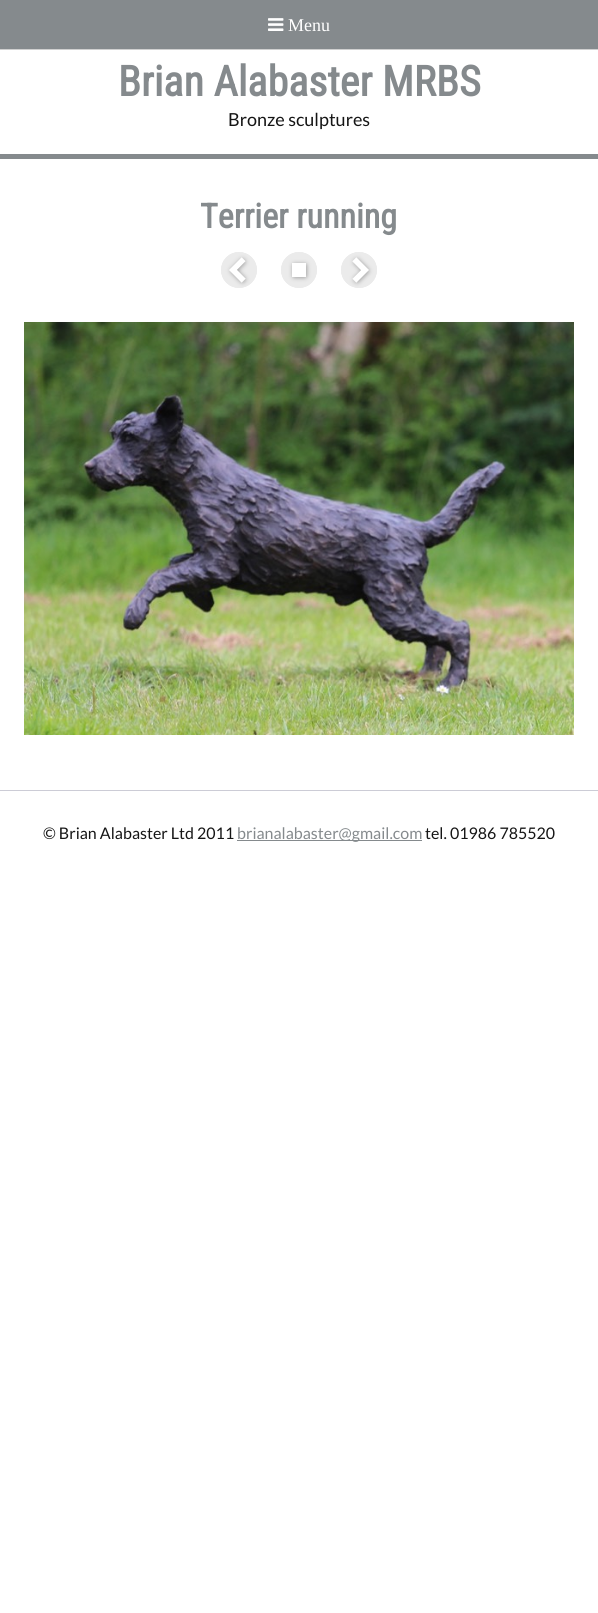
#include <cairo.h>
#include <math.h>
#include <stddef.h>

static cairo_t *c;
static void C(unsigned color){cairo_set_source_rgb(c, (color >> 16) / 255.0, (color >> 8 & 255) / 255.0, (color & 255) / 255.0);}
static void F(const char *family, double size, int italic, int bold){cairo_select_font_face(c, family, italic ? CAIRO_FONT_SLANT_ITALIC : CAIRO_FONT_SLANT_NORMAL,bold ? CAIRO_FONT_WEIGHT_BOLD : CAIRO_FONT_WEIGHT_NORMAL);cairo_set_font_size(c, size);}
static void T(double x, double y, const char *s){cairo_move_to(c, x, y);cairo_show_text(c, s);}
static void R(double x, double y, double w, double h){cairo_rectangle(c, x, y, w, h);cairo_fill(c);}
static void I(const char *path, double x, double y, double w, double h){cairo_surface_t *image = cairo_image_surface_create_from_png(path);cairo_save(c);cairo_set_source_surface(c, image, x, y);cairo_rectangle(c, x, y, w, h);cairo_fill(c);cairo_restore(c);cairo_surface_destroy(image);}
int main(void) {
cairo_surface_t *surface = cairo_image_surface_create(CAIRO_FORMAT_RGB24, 598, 1613);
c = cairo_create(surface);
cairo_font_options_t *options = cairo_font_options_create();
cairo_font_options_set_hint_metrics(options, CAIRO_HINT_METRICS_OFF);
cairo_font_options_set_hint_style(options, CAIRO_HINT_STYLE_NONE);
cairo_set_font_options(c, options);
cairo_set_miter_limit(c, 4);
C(0xffffff);
cairo_paint(c);
C(0x858a8d);
R(0,0,598,49);
C(0xd0d0d0);
R(0,49,598,1);
I("1.png",268,18,16,13);
F("Liberation Serif",18,0,0);
C(0xffffff);
T(288,31,"Menu");
F("Roboto Condensed",42,0,1);
C(0x858a8d);
T(118,96,"Brian Alabaster MRBS");
F("Lato",18,0,0);
C(0x151515);
T(228,126,"Bronze sculptures");
C(0x858a8d);
R(0,154,598,5);
F("Roboto Condensed",34,0,1);
T(200,228,"Terrier running");
I("2.png",221,252,36,36);
I("3.png",221,252,36,36);
I("4.png",281,252,36,36);
I("5.png",281,252,36,36);
I("6.png",341,252,36,36);
I("7.png",341,252,36,36);
I("8.png",24,322,550,413);
C(0xccccd6);
R(0,790,598,1);
F("Lato",16,0,0);
C(0x151515);
T(43,839,"© Brian Alabaster Ltd 2011");
C(0x858a8d);
R(237,840,185,1);
T(237,839,"brianalabaster@gmail.com");
C(0x151515);
T(425,839,"tel. 01986 785520");
cairo_surface_write_to_png(surface, "o.png");
cairo_font_options_destroy(options);
cairo_destroy(c);
cairo_surface_destroy(surface);
return 0;
}
